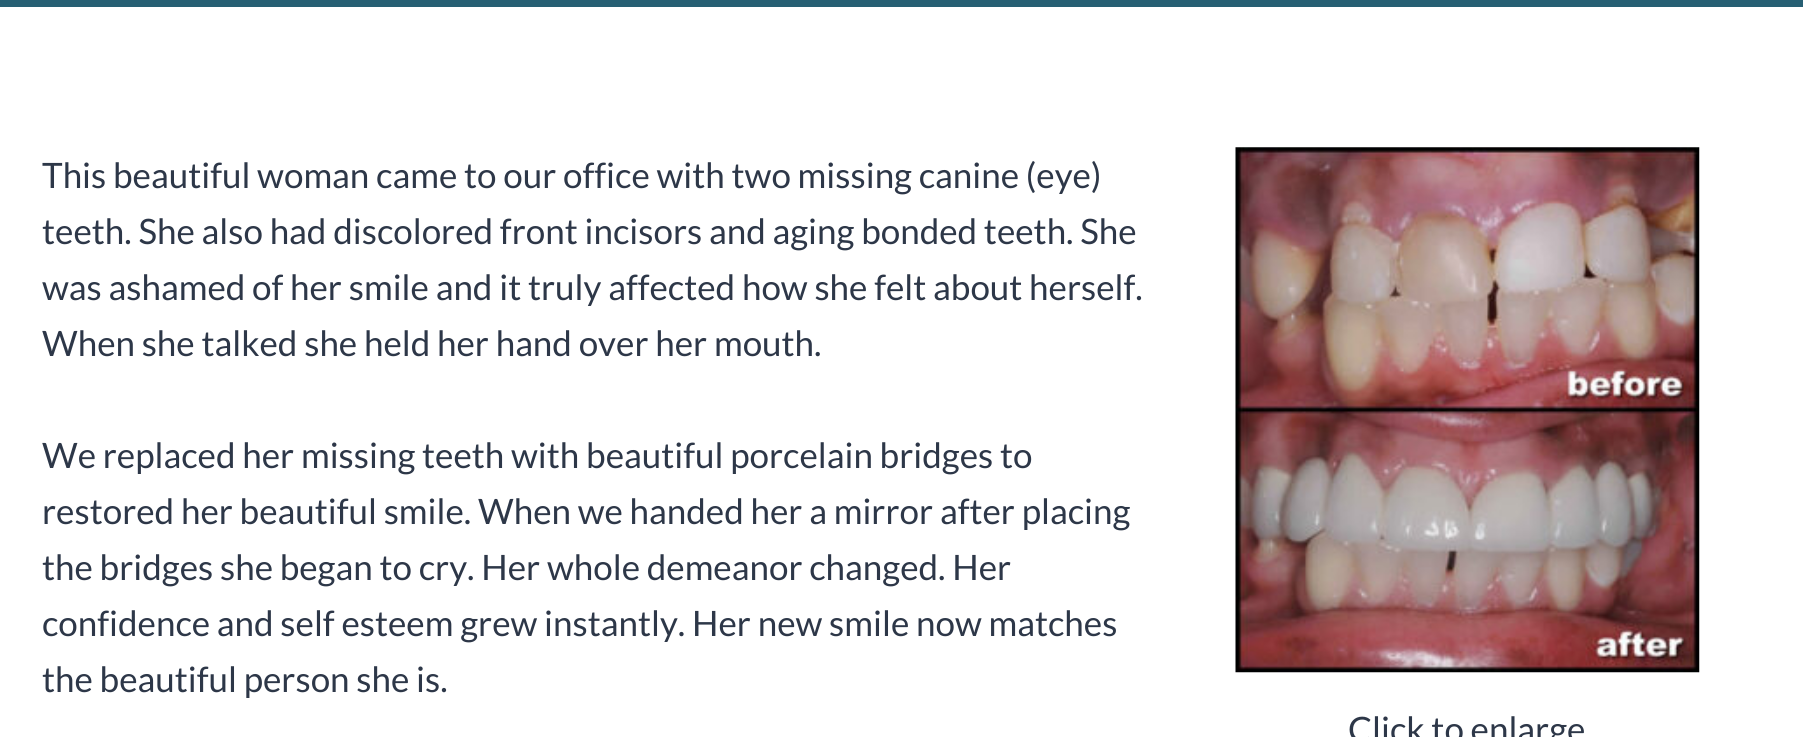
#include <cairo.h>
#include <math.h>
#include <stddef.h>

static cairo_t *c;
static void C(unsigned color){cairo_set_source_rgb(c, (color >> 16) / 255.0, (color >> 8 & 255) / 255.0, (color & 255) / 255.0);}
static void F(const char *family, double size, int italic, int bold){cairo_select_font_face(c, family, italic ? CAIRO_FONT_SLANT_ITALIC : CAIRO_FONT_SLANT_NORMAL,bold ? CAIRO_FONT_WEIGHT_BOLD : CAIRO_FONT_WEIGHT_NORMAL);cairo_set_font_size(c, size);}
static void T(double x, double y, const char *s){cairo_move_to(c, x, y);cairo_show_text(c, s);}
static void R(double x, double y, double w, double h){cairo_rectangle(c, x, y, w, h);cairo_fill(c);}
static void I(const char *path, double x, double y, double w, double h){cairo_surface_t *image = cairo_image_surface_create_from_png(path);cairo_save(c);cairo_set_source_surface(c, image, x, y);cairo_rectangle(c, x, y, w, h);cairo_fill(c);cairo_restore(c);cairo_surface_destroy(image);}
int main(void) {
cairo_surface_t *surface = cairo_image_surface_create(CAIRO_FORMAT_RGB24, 1803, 737);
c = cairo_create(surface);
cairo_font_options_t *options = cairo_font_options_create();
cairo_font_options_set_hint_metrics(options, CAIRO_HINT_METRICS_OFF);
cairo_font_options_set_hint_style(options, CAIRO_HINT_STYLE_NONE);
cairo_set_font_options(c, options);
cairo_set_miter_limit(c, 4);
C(0xffffff);
cairo_paint(c);
C(0x275f73);
R(0,0,1803,7);
F("Lato",35,0,0);
C(0x2d3748);
T(42,188,"This beautiful woman came to our office with two missing canine (eye)");
T(42,244,"teeth. She also had discolored front incisors and aging bonded teeth. She");
T(42,300,"was ashamed of her smile and it truly affected how she felt about herself.");
T(42,356,"When she talked she held her hand over her mouth.");
T(42,468,"We replaced her missing teeth with beautiful porcelain bridges to");
T(42,524,"restored her beautiful smile. When we handed her a mirror after placing");
T(42,580,"the bridges she began to cry. Her whole demeanor changed. Her");
T(42,636,"confidence and self esteem grew instantly. Her new smile now matches");
T(42,692,"the beautiful person she is.");
I("1.png",1235,147,465,526);
T(1348,742,"Click to enlarge");
cairo_surface_write_to_png(surface, "o.png");
cairo_font_options_destroy(options);
cairo_destroy(c);
cairo_surface_destroy(surface);
return 0;
}
